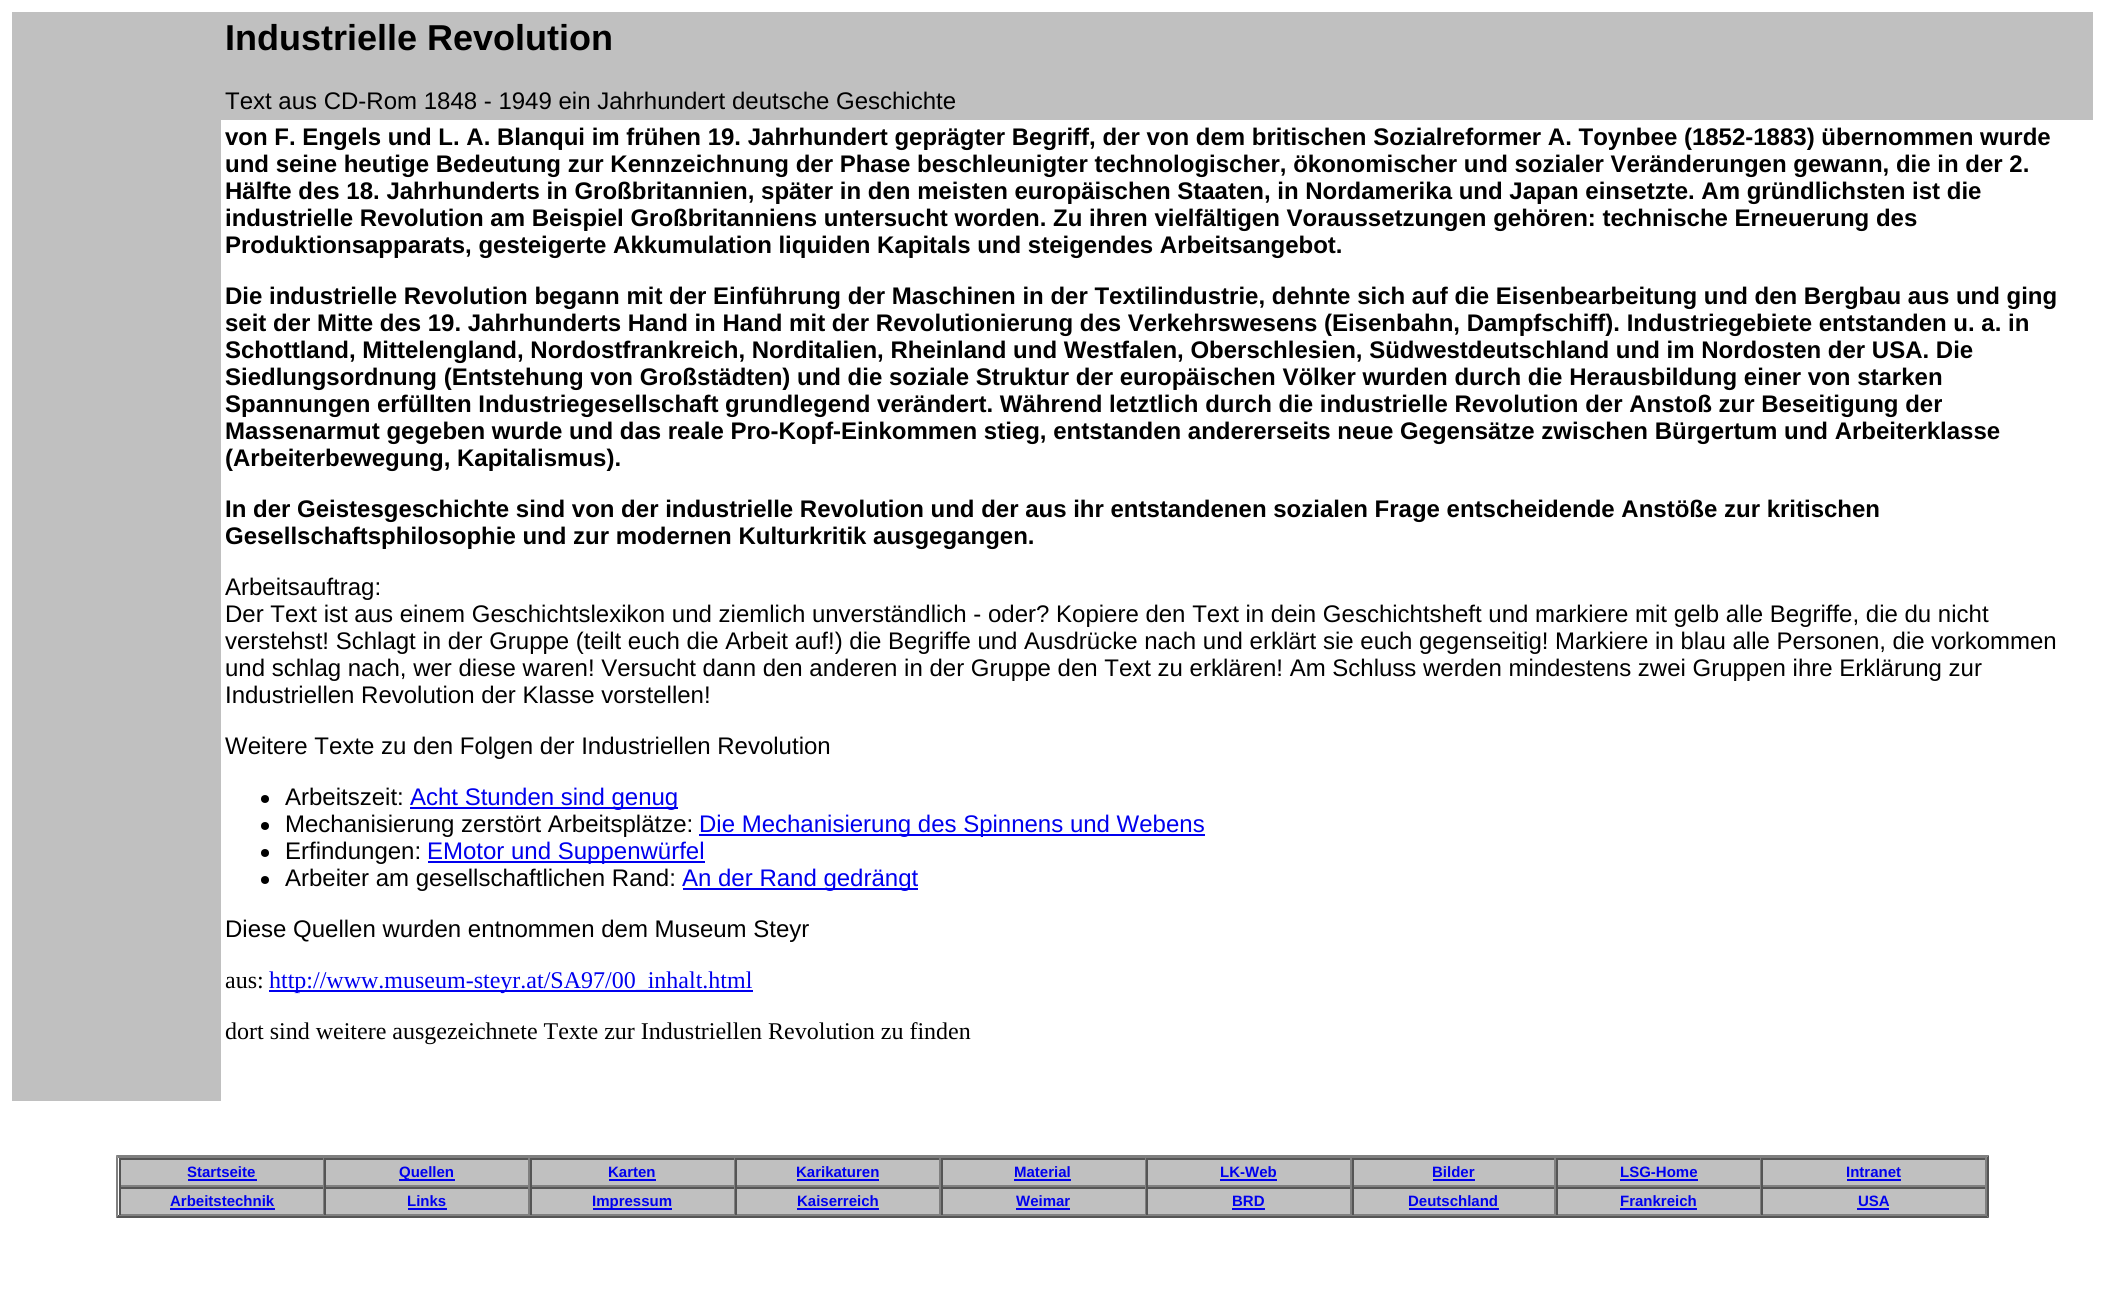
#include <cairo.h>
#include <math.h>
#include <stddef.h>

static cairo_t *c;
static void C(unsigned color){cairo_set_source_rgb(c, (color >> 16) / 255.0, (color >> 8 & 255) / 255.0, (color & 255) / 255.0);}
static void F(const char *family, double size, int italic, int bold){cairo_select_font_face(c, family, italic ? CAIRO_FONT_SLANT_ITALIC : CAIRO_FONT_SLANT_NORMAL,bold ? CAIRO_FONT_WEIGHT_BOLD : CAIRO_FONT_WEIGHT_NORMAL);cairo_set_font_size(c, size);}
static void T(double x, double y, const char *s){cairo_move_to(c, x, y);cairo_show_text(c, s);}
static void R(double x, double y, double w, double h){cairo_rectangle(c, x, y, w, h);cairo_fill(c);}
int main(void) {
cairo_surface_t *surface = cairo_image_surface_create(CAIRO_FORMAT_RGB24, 2104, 1312);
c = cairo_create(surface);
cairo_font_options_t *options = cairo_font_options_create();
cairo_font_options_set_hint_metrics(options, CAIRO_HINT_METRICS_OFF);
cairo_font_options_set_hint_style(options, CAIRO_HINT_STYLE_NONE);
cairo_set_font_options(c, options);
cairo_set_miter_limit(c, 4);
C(0xffffff);
cairo_paint(c);
C(0xc0c0c0);
R(12,12,2081,108);
F("Liberation Sans",36,0,1);
C(0x000000);
T(225,50,"Industrielle Revolution");
F("Liberation Sans",24,0,0);
T(225,109,"Text aus CD-Rom 1848 - 1949 ein Jahrhundert deutsche Geschichte");
C(0xc0c0c0);
R(12,120,209,981);
F("Liberation Sans",24,0,1);
C(0x000000);
T(225,145,"von F. Engels und L. A. Blanqui im frühen 19. Jahrhundert geprägter Begriff, der von dem britischen Sozialreformer A. Toynbee (1852-1883) übernommen wurde");
T(225,172,"und seine heutige Bedeutung zur Kennzeichnung der Phase beschleunigter technologischer, ökonomischer und sozialer Veränderungen gewann, die in der 2.");
T(225,199,"Hälfte des 18. Jahrhunderts in Großbritannien, später in den meisten europäischen Staaten, in Nordamerika und Japan einsetzte. Am gründlichsten ist die");
T(225,226,"industrielle Revolution am Beispiel Großbritanniens untersucht worden. Zu ihren vielfältigen Voraussetzungen gehören: technische Erneuerung des");
T(225,253,"Produktionsapparats, gesteigerte Akkumulation liquiden Kapitals und steigendes Arbeitsangebot.");
T(225,304,"Die industrielle Revolution begann mit der Einführung der Maschinen in der Textilindustrie, dehnte sich auf die Eisenbearbeitung und den Bergbau aus und ging");
T(225,331,"seit der Mitte des 19. Jahrhunderts Hand in Hand mit der Revolutionierung des Verkehrswesens (Eisenbahn, Dampfschiff). Industriegebiete entstanden u. a. in");
T(225,358,"Schottland, Mittelengland, Nordostfrankreich, Norditalien, Rheinland und Westfalen, Oberschlesien, Südwestdeutschland und im Nordosten der USA. Die");
T(225,385,"Siedlungsordnung (Entstehung von Großstädten) und die soziale Struktur der europäischen Völker wurden durch die Herausbildung einer von starken");
T(225,412,"Spannungen erfüllten Industriegesellschaft grundlegend verändert. Während letztlich durch die industrielle Revolution der Anstoß zur Beseitigung der");
T(225,439,"Massenarmut gegeben wurde und das reale Pro-Kopf-Einkommen stieg, entstanden andererseits neue Gegensätze zwischen Bürgertum und Arbeiterklasse");
T(225,466,"(Arbeiterbewegung, Kapitalismus).");
T(225,517,"In der Geistesgeschichte sind von der industrielle Revolution und der aus ihr entstandenen sozialen Frage entscheidende Anstöße zur kritischen");
T(225,544,"Gesellschaftsphilosophie und zur modernen Kulturkritik ausgegangen.");
F("Liberation Sans",24,0,0);
T(225,595,"Arbeitsauftrag:");
T(225,622,"Der Text ist aus einem Geschichtslexikon und ziemlich unverständlich - oder? Kopiere den Text in dein Geschichtsheft und markiere mit gelb alle Begriffe, die du nicht");
T(225,649,"verstehst! Schlagt in der Gruppe (teilt euch die Arbeit auf!) die Begriffe und Ausdrücke nach und erklärt sie euch gegenseitig! Markiere in blau alle Personen, die vorkommen");
T(225,676,"und schlag nach, wer diese waren! Versucht dann den anderen in der Gruppe den Text zu erklären! Am Schluss werden mindestens zwei Gruppen ihre Erklärung zur");
T(225,703,"Industriellen Revolution der Klasse vorstellen!");
T(225,754,"Weitere Texte zu den Folgen der Industriellen Revolution");
cairo_new_path(c);
cairo_arc(c,265,799,4,0,2 * M_PI);
cairo_fill(c);
T(285,805,"Arbeitszeit:");
C(0x0000ee);
R(410,807,268,2);
T(410,805,"Acht Stunden sind genug");
C(0x000000);
cairo_new_path(c);
cairo_arc(c,265,826,4,0,2 * M_PI);
cairo_fill(c);
T(285,832,"Mechanisierung zerstört Arbeitsplätze:");
C(0x0000ee);
R(699,834,506,2);
T(699,832,"Die Mechanisierung des Spinnens und Webens");
C(0x000000);
cairo_new_path(c);
cairo_arc(c,265,853,4,0,2 * M_PI);
cairo_fill(c);
T(285,859,"Erfindungen:");
C(0x0000ee);
R(428,861,277,2);
T(427,859,"EMotor und Suppenwürfel");
C(0x000000);
cairo_new_path(c);
cairo_arc(c,265,880,4,0,2 * M_PI);
cairo_fill(c);
T(285,886,"Arbeiter am gesellschaftlichen Rand:");
C(0x0000ee);
R(683,888,235,2);
T(682,886,"An der Rand gedrängt");
C(0x000000);
T(225,937,"Diese Quellen wurden entnommen dem Museum Steyr");
F("Liberation Serif",24,0,0);
T(225,988,"aus:");
C(0x0000ee);
R(269,990,484,2);
T(269,988,"http://www.museum-steyr.at/SA97/00_inhalt.html");
C(0x000000);
T(225,1039,"dort sind weitere ausgezeichnete Texte zur Industriellen Revolution zu finden");
C(0x808080);
cairo_new_path(c);
cairo_move_to(c,116,1155);
cairo_line_to(c,1989,1155);
cairo_line_to(c,1986,1158);
cairo_line_to(c,118,1158);
cairo_close_path(c);
cairo_fill(c);
C(0x555555);
cairo_new_path(c);
cairo_move_to(c,1989,1155);
cairo_line_to(c,1989,1218);
cairo_line_to(c,1986,1215);
cairo_line_to(c,1986,1158);
cairo_close_path(c);
cairo_fill(c);
cairo_new_path(c);
cairo_move_to(c,1989,1218);
cairo_line_to(c,116,1218);
cairo_line_to(c,118,1215);
cairo_line_to(c,1986,1215);
cairo_close_path(c);
cairo_fill(c);
C(0x808080);
cairo_new_path(c);
cairo_move_to(c,116,1218);
cairo_line_to(c,116,1155);
cairo_line_to(c,118,1158);
cairo_line_to(c,118,1215);
cairo_close_path(c);
cairo_fill(c);
C(0xc0c0c0);
R(121,1160,202,25);
C(0x555555);
R(119,1158,1867,2);
C(0x808080);
R(323,1158,1,29);
R(119,1185,205,2);
C(0x555555);
R(119,1158,2,29);
F("Liberation Sans",15,0,1);
C(0x0000ee);
T(187,1177,"Startseite");
R(188,1179,69,2);
C(0xc0c0c0);
R(326,1160,202,25);
C(0x808080);
R(528,1158,2,29);
R(324,1185,206,2);
C(0x555555);
R(324,1158,2,29);
C(0x0000ee);
R(399,1179,56,2);
T(399,1177,"Quellen");
C(0xc0c0c0);
R(532,1160,202,25);
C(0x808080);
R(734,1158,1,29);
R(530,1185,205,2);
C(0x555555);
R(530,1158,2,29);
C(0x0000ee);
T(608,1177,"Karten");
R(609,1179,47,2);
C(0xc0c0c0);
R(737,1160,202,25);
C(0x808080);
R(939,1158,2,29);
R(735,1185,206,2);
C(0x555555);
R(735,1158,2,29);
C(0x0000ee);
T(796,1177,"Karikaturen");
R(797,1179,82,2);
C(0xc0c0c0);
R(943,1160,202,25);
C(0x808080);
R(1145,1158,1,29);
R(941,1185,205,2);
C(0x555555);
R(941,1158,2,29);
C(0x0000ee);
T(1014,1177,"Material");
R(1014,1179,57,2);
C(0xc0c0c0);
R(1148,1160,202,25);
C(0x808080);
R(1350,1158,2,29);
R(1146,1185,206,2);
C(0x555555);
R(1146,1158,2,29);
C(0x0000ee);
T(1220,1177,"LK-Web");
R(1220,1179,57,2);
C(0xc0c0c0);
R(1354,1160,200,25);
C(0x808080);
R(1554,1158,2,29);
R(1352,1185,204,2);
C(0x555555);
R(1352,1158,2,29);
C(0x0000ee);
T(1432,1177,"Bilder");
R(1433,1179,42,2);
C(0xc0c0c0);
R(1558,1160,202,25);
C(0x808080);
R(1760,1158,1,29);
R(1556,1185,205,2);
C(0x555555);
R(1556,1158,2,29);
C(0x0000ee);
T(1620,1177,"LSG-Home");
R(1620,1179,78,2);
C(0xc0c0c0);
R(1763,1160,222,25);
C(0x808080);
R(1985,1158,2,29);
R(1761,1185,225,2);
C(0x555555);
R(1761,1158,2,29);
C(0x0000ee);
T(1846,1177,"Intranet");
R(1847,1179,54,2);
C(0xc0c0c0);
R(121,1189,202,25);
C(0x555555);
R(119,1187,1867,2);
C(0x808080);
R(323,1187,1,28);
R(119,1214,205,2);
C(0x555555);
R(119,1187,2,28);
C(0x0000ee);
T(170,1206,"Arbeitstechnik");
R(170,1208,105,2);
C(0xc0c0c0);
R(326,1189,202,25);
C(0x808080);
R(528,1187,2,28);
R(324,1214,206,2);
C(0x555555);
R(324,1187,2,28);
C(0x0000ee);
T(407,1206,"Links");
R(408,1208,39,2);
C(0xc0c0c0);
R(532,1189,202,25);
C(0x808080);
R(734,1187,1,28);
R(530,1214,205,2);
C(0x555555);
R(530,1187,2,28);
C(0x0000ee);
R(593,1208,79,2);
T(592,1206,"Impressum");
C(0xc0c0c0);
R(737,1189,202,25);
C(0x808080);
R(939,1187,2,28);
R(735,1214,206,2);
C(0x555555);
R(735,1187,2,28);
C(0x0000ee);
T(797,1206,"Kaiserreich");
R(797,1208,82,2);
C(0xc0c0c0);
R(943,1189,202,25);
C(0x808080);
R(1145,1187,1,28);
R(941,1214,205,2);
C(0x555555);
R(941,1187,2,28);
C(0x0000ee);
T(1016,1206,"Weimar");
R(1016,1208,54,2);
C(0xc0c0c0);
R(1148,1189,202,25);
C(0x808080);
R(1350,1187,2,28);
R(1146,1214,206,2);
C(0x555555);
R(1146,1187,2,28);
C(0x0000ee);
T(1232,1206,"BRD");
R(1232,1208,33,2);
C(0xc0c0c0);
R(1354,1189,200,25);
C(0x808080);
R(1554,1187,2,28);
R(1352,1214,204,2);
C(0x555555);
R(1352,1187,2,28);
C(0x0000ee);
T(1408,1206,"Deutschland");
R(1409,1208,90,2);
C(0xc0c0c0);
R(1558,1189,202,25);
C(0x808080);
R(1760,1187,1,28);
R(1556,1214,205,2);
C(0x555555);
R(1556,1187,2,28);
C(0x0000ee);
T(1620,1206,"Frankreich");
R(1620,1208,77,2);
C(0xc0c0c0);
R(1763,1189,222,25);
C(0x808080);
R(1985,1187,2,28);
R(1761,1214,225,2);
C(0x555555);
R(1761,1187,2,28);
C(0x0000ee);
T(1858,1206,"USA");
R(1857,1208,32,2);
cairo_surface_write_to_png(surface, "o.png");
cairo_font_options_destroy(options);
cairo_destroy(c);
cairo_surface_destroy(surface);
return 0;
}
